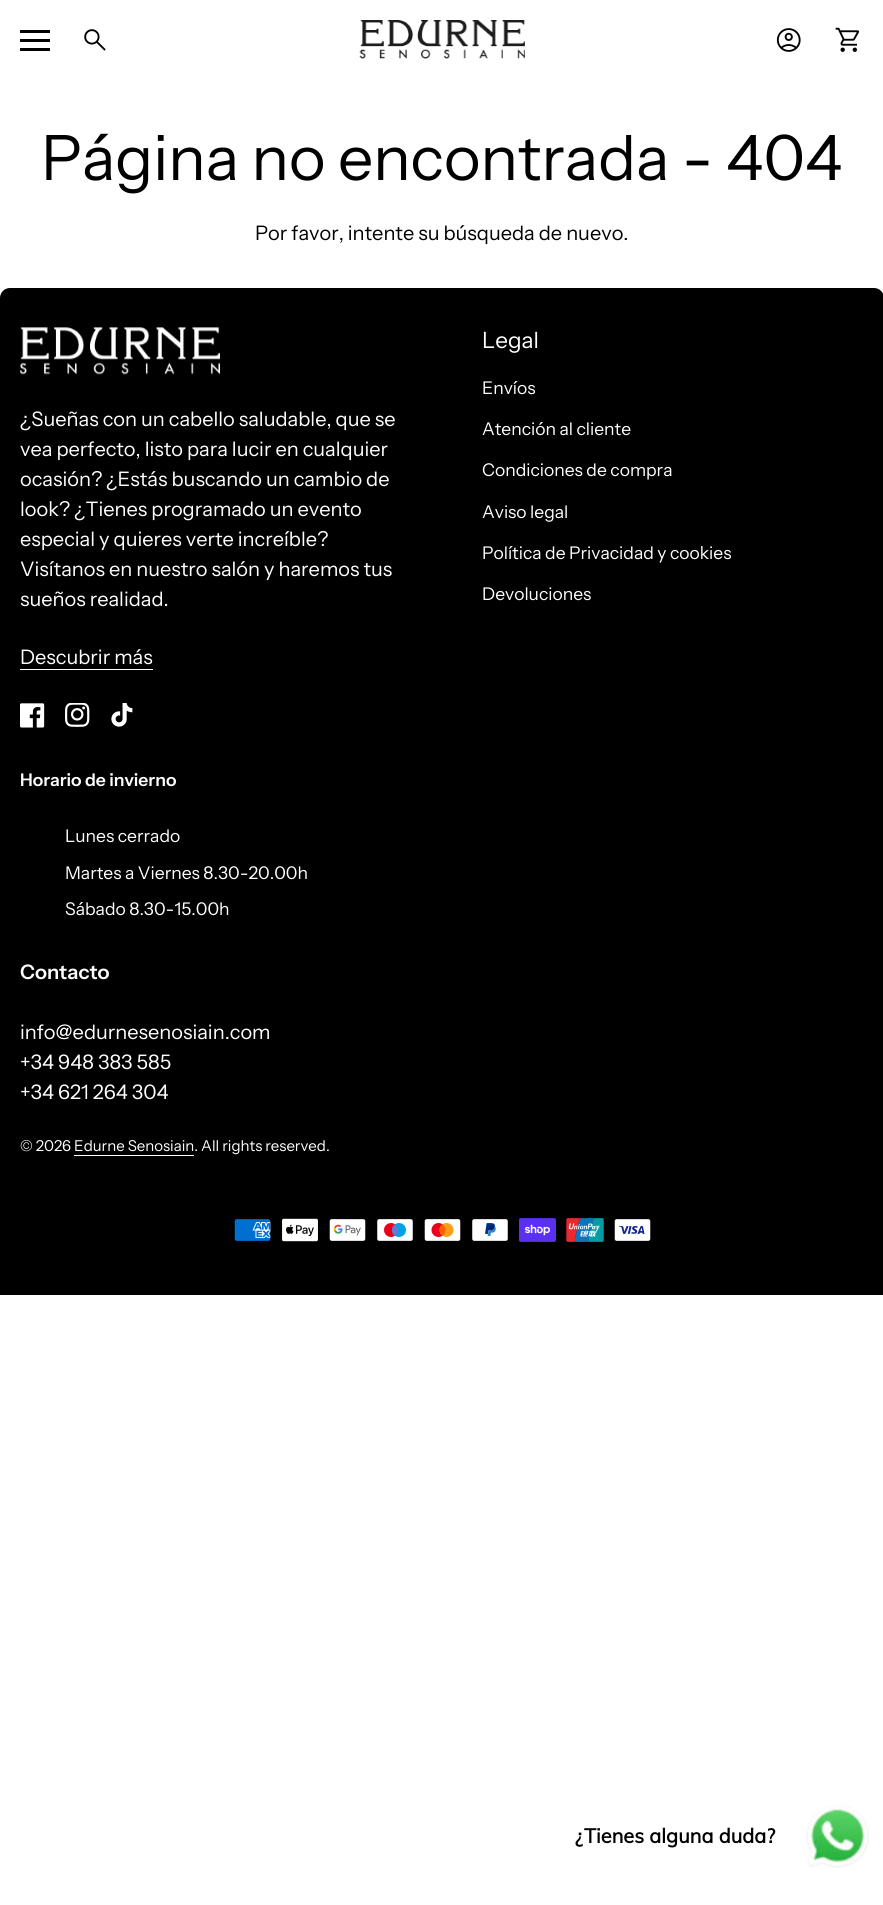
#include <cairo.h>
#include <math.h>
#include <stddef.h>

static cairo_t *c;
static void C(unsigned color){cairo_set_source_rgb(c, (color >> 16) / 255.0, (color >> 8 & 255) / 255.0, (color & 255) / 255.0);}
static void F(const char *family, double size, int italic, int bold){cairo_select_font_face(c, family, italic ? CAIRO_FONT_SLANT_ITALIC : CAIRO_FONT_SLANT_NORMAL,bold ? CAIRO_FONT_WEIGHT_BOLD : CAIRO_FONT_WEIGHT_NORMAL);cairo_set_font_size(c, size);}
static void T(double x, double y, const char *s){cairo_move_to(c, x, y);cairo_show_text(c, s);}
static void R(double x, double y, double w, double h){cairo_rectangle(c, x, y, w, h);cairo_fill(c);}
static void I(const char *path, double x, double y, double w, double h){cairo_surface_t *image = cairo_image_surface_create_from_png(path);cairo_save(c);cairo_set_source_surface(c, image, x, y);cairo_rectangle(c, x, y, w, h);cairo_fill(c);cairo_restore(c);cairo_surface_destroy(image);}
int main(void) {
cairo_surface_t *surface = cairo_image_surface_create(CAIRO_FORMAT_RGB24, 883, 1905);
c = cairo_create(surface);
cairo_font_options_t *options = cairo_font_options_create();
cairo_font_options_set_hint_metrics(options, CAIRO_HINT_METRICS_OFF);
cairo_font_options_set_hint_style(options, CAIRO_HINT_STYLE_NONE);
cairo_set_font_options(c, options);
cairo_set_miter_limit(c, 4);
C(0xffffff);
cairo_paint(c);
C(0x000000);
R(20,30,30,3);
R(20,39,30,3);
R(20,48,30,3);
I("1.png",84,29,22,22);
I("2.png",359,20,166,39);
I("3.png",776,28,25,24);
I("4.png",835,27,25,25);
F("Instrument Sans",62.5,0,0);
T(41,180,"Página no encontrada - 404");
F("Instrument Sans",20,0,0);
T(255,240,"Por favor, intente su búsqueda de nuevo.");
cairo_new_path(c);
cairo_move_to(c,10,288);
cairo_line_to(c,874,288);
cairo_curve_to(c,879.5,288,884,292.5,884,298);
cairo_line_to(c,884,1295);
cairo_line_to(c,0,1295);
cairo_line_to(c,0,298);
cairo_curve_to(c,0,292.5,4.5,288,10,288);
cairo_close_path(c);
cairo_fill(c);
I("5.png",20,327,200,48);
C(0xffffff);
T(20,426,"¿Sueñas con un cabello saludable, que se");
T(20,456,"vea perfecto, listo para lucir en cualquier");
T(20,486,"ocasión? ¿Estás buscando un cambio de");
T(20,516,"look? ¿Tienes programado un evento");
T(20,546,"especial y quieres verte increíble?");
T(20,576,"Visítanos en nuestro salón y haremos tus");
T(20,606,"sueños realidad.");
R(20,669,133,1);
T(20,664,"Descubrir más");
I("6.png",20,703,25,25);
I("7.png",65,703,25,24);
I("8.png",111,703,22,24);
F("Instrument Sans",22.5,0,0);
T(482,348,"Legal");
F("Instrument Sans",17.5,0,0);
T(482,394,"Envíos");
T(482,435,"Atención al cliente");
T(482,476,"Condiciones de compra");
T(482,518,"Aviso legal");
T(482,559,"Política de Privacidad y cookies");
T(482,600,"Devoluciones");
F("Instrument Sans SemiBold",17.5,0,0);
T(20,786,"Horario de invierno");
F("Instrument Sans",17.5,0,0);
T(65,842,"Lunes cerrado");
T(65,879,"Martes a Viernes 8.30-20.00h");
T(65,915,"Sábado 8.30-15.00h");
F("Instrument Sans SemiBold",20,0,0);
T(20,979,"Contacto");
F("Instrument Sans",20,0,0);
T(20,1039,"info@edurnesenosiain.com");
T(20,1069,"+34 948 383 585");
T(20,1099,"+34 621 264 304");
F("Instrument Sans",15,0,0);
T(20,1151,"© 2026 Edurne Senosiain. All rights reserved.");
R(74,1155,120,1);
I("9.png",234,1219,37,22);
I("10.png",282,1218,36,24);
I("11.png",329,1219,37,22);
I("12.png",377,1219,36,22);
I("13.png",424,1219,37,22);
I("14.png",472,1219,36,22);
I("15.png",519,1218,37,24);
I("16.png",566,1218,38,24);
I("17.png",614,1219,37,22);
I("18.png",806,1805,63,63);
F("Muli",20,0,1);
C(0x000000);
T(575,1843,"¿Tienes alguna duda?");
cairo_surface_write_to_png(surface, "o.png");
cairo_font_options_destroy(options);
cairo_destroy(c);
cairo_surface_destroy(surface);
return 0;
}
